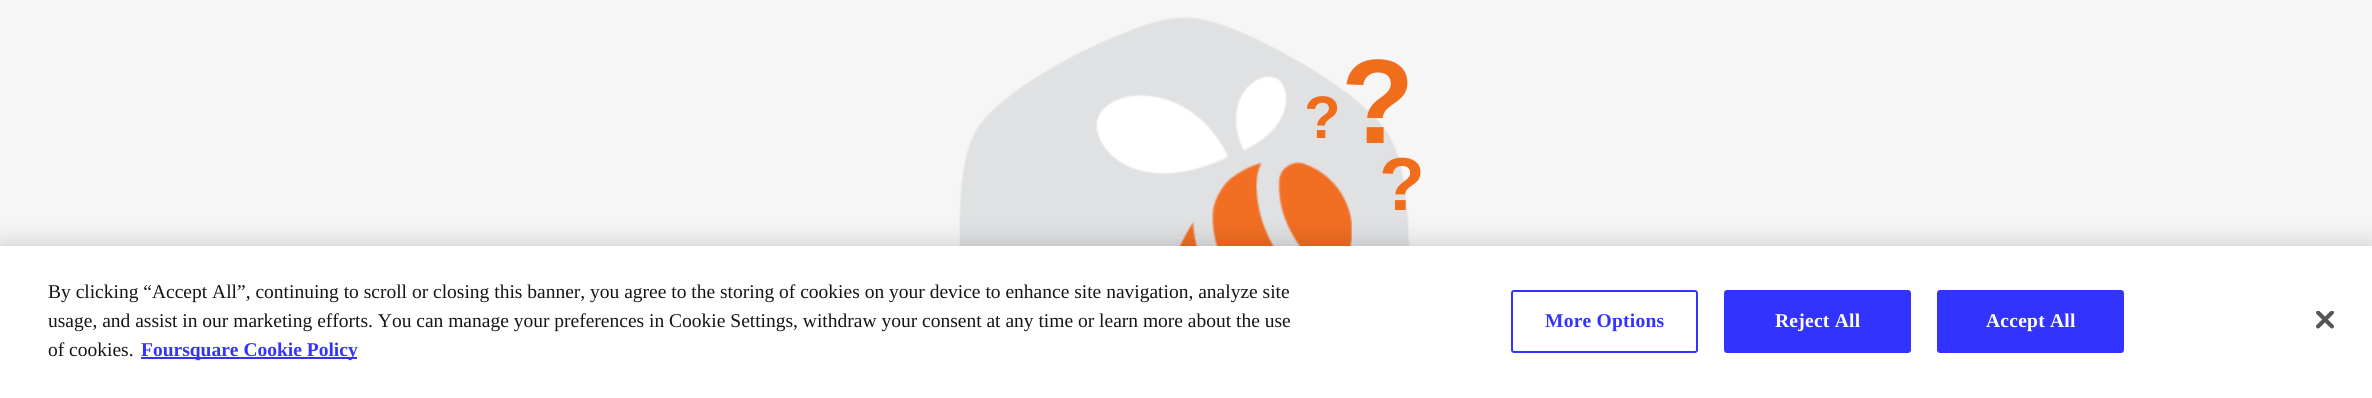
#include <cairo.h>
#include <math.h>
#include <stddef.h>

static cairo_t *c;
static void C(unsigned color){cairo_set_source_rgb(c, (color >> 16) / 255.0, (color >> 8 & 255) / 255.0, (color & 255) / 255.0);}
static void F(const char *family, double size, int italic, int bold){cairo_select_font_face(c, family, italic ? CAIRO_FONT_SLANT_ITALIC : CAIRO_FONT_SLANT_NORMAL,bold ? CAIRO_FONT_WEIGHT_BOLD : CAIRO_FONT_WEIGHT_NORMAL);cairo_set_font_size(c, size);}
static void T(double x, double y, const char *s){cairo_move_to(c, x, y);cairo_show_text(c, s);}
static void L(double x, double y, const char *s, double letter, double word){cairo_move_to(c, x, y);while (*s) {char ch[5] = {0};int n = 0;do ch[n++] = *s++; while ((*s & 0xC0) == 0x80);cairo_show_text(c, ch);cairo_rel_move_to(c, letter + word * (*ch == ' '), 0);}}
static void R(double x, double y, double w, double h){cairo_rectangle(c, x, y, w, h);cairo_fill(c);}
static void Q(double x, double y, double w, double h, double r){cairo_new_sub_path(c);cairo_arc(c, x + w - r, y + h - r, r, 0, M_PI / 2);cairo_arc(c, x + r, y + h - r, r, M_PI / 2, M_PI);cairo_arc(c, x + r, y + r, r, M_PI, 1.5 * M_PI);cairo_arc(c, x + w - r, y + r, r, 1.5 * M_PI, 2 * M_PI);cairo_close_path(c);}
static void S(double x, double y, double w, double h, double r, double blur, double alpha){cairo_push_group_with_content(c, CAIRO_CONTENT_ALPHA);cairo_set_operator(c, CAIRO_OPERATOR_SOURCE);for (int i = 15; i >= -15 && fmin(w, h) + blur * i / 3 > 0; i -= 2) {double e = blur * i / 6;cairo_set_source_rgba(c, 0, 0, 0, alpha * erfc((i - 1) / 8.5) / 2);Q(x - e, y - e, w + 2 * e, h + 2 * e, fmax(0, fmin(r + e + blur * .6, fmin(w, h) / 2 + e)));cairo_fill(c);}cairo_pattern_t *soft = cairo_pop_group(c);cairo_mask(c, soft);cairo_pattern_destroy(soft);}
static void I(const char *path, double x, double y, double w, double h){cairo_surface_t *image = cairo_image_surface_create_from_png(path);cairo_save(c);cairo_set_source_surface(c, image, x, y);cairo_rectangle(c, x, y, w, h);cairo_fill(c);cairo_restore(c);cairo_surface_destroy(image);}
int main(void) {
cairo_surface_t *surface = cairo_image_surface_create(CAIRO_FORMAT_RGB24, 2372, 398);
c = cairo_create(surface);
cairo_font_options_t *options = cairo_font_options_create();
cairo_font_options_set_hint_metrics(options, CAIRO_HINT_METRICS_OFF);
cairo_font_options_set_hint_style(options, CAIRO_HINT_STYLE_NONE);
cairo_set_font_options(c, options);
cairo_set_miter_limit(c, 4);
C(0xf6f6f6);
cairo_paint(c);
C(0xe0e1e2);
R(958,16,453,230);
I("2.png",1096,76,256,170);
I("1.png",944,0,478,246);
F("Liberation Sans",60,0,1);
C(0xf06d1b);
T(1304,138,"?");
F("Liberation Sans",120,0,1);
T(1341,143,"?");
F("Liberation Sans",75,0,1);
T(1379,210,"?");
C(0x000000);
S(0,246,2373,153,0,13.5,.2);
C(0xffffff);
R(0,246,2372,152);
F("Liberation Serif",19.5,0,0);
C(0x171417);
T(48,298,"By clicking “Accept All”, continuing to scroll or closing this banner, you agree to the storing of cookies on your device to enhance site navigation, analyze site");
T(48,327,"usage, and assist in our marketing efforts. You can manage your preferences in Cookie Settings, withdraw your consent at any time or learn more about the use");
T(48,356,"of cookies.");
C(0x3333ff);
R(141,357,216,2);
F("Liberation Serif",19.5,0,1);
T(141,356,"Foursquare Cookie Policy");
Q(1512,291,185,61,2);
cairo_stroke(c);
L(1545,327,"More Options",.25,0);
Q(1725,291,185,61,2);
cairo_fill_preserve(c);
cairo_stroke(c);
C(0xffffff);
L(1775,327,"Reject All",.25,0);
C(0x3333ff);
Q(1938,291,185,61,2);
cairo_fill_preserve(c);
cairo_stroke(c);
C(0xffffff);
L(1986,327,"Accept All",.25,0);
I("3.png",2316,311,18,18);
cairo_surface_write_to_png(surface, "o.png");
cairo_font_options_destroy(options);
cairo_destroy(c);
cairo_surface_destroy(surface);
return 0;
}
